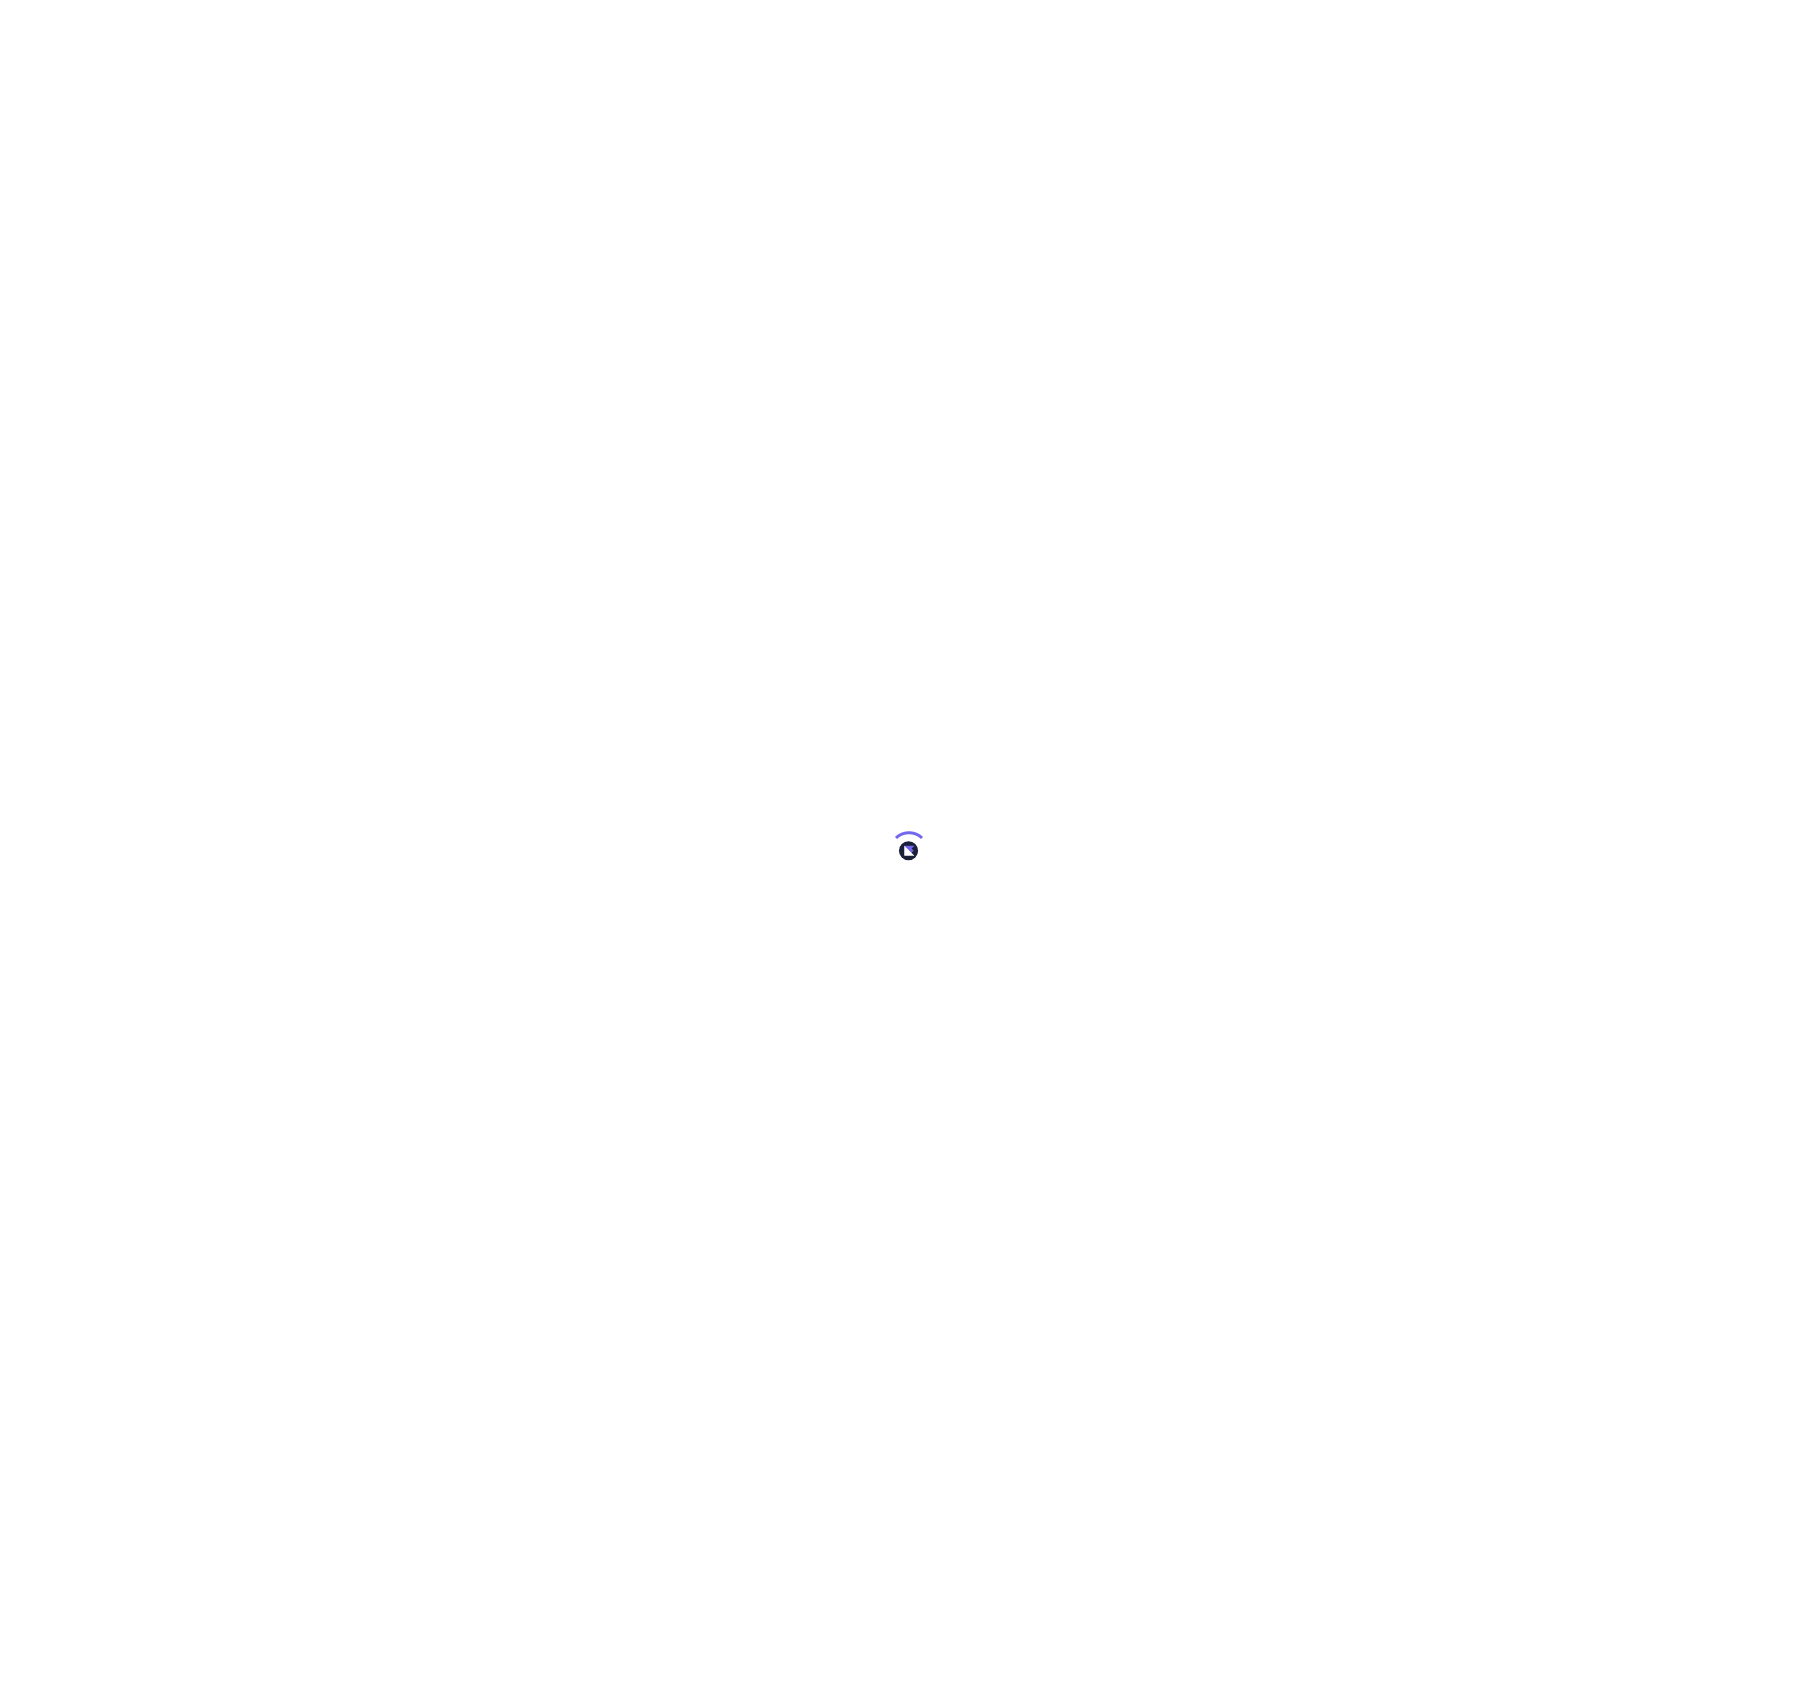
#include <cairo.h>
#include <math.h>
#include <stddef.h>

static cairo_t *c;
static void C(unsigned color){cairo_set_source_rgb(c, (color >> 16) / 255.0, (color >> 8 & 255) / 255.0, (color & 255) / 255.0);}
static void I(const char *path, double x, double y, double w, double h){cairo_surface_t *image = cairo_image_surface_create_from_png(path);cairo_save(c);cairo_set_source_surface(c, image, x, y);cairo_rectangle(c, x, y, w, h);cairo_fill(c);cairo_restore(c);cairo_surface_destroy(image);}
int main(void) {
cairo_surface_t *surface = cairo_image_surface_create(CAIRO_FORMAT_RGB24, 1817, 1702);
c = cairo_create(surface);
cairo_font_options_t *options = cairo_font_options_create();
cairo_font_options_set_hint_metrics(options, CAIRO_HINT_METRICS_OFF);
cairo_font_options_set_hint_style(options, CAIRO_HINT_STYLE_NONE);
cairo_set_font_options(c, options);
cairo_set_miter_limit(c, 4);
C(0xffffff);
cairo_paint(c);
cairo_new_path(c);
cairo_move_to(c,896,838);
cairo_curve_to(c,903,831,915,831,922,838);
cairo_move_to(c,896,838);
cairo_curve_to(c,903,831,915,831,922,838);
cairo_move_to(c,896,838);
cairo_curve_to(c,903,831,915,831,922,838);
cairo_move_to(c,896,838);
cairo_curve_to(c,903,831,915,831,922,838);
C(0x7467ef);
cairo_set_line_width(c,3);
cairo_stroke(c);
I("1.png",898,841,21,20);
cairo_surface_write_to_png(surface, "o.png");
cairo_font_options_destroy(options);
cairo_destroy(c);
cairo_surface_destroy(surface);
return 0;
}
